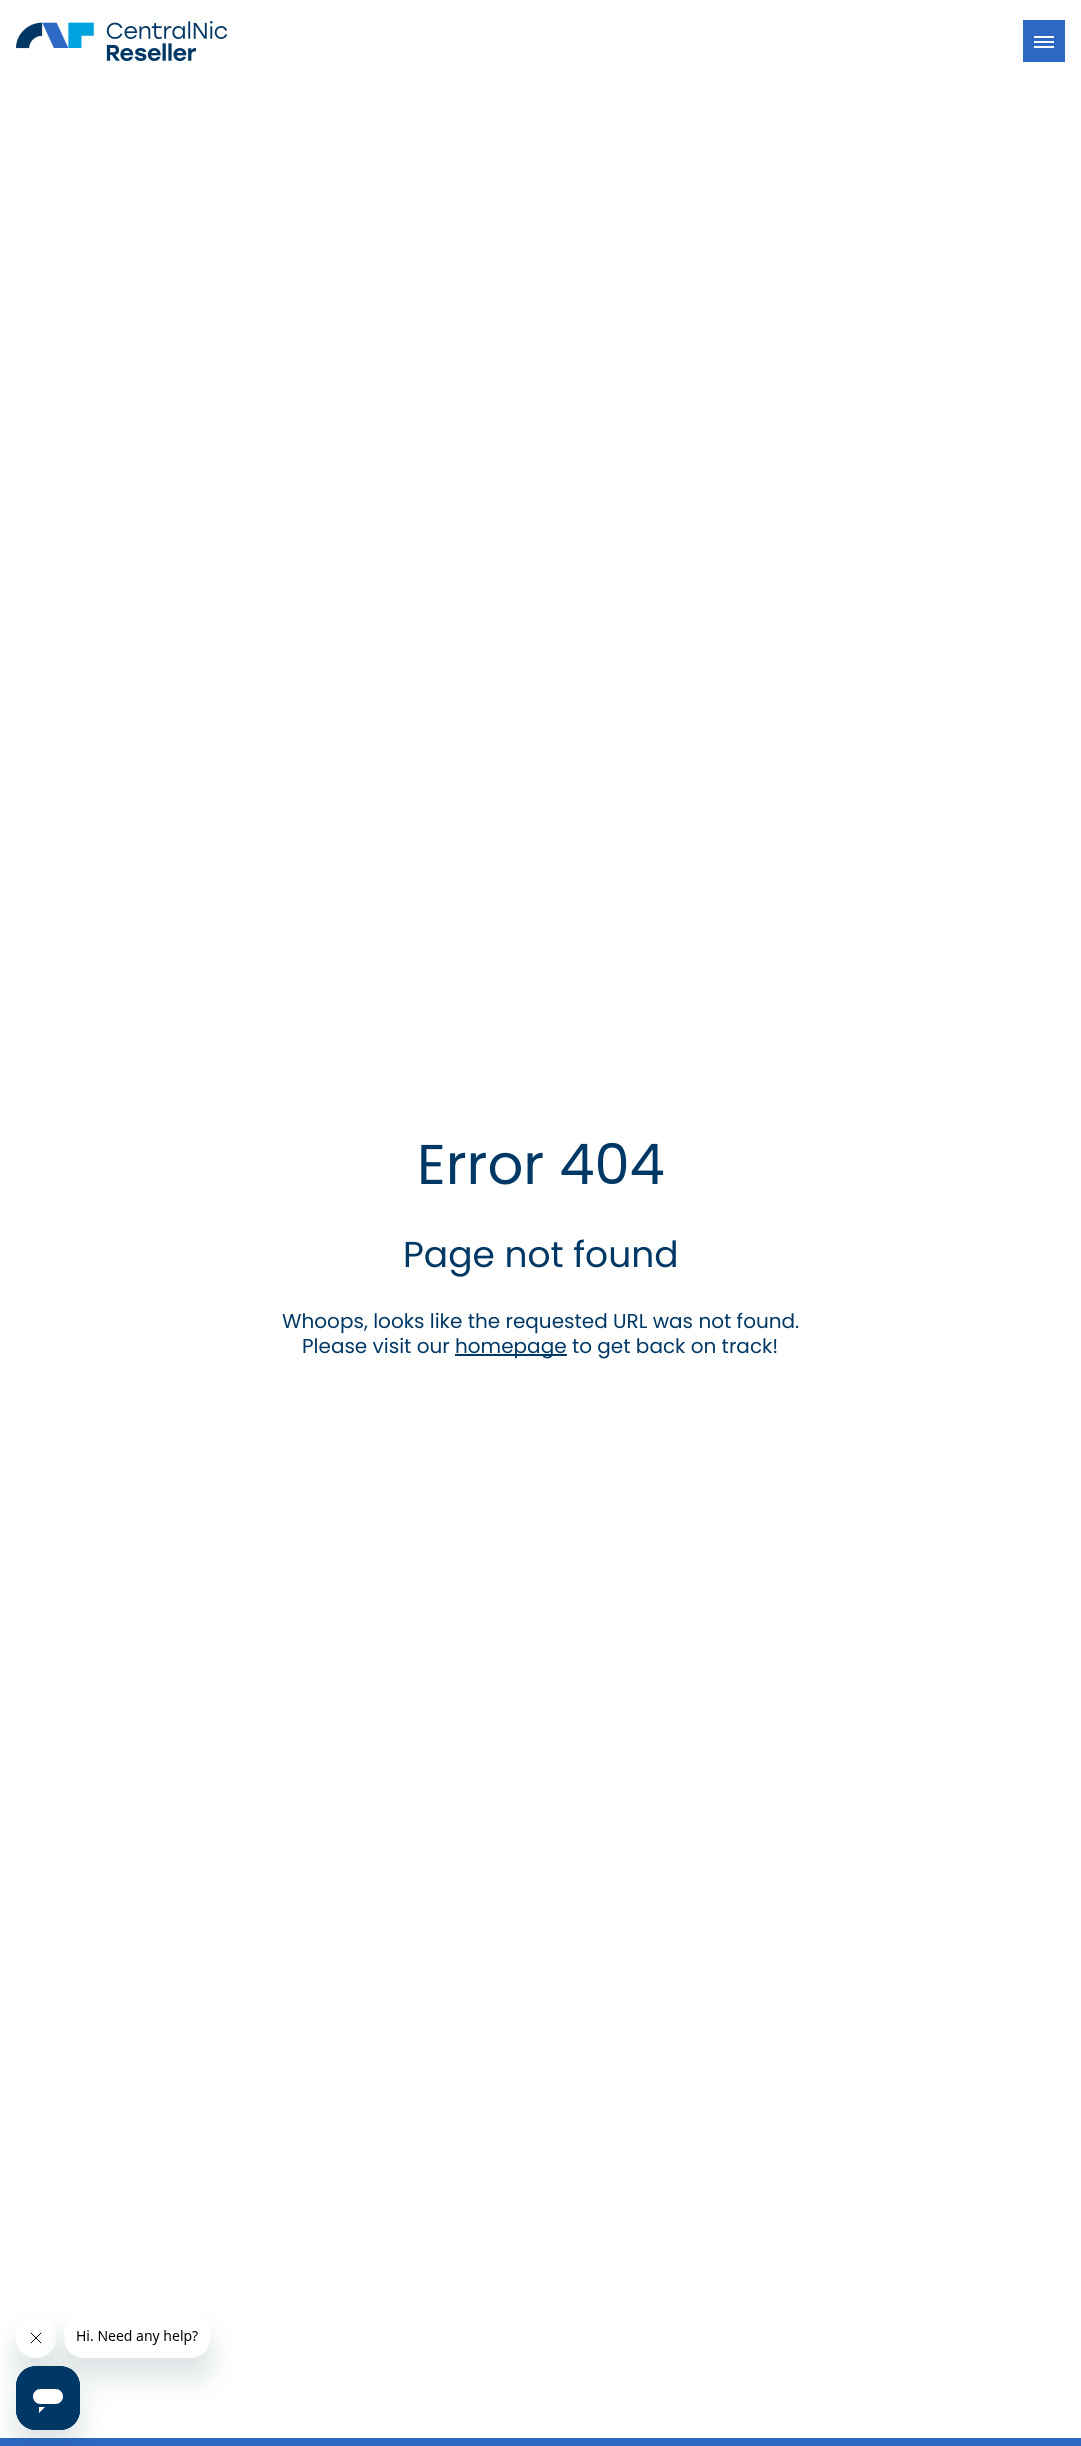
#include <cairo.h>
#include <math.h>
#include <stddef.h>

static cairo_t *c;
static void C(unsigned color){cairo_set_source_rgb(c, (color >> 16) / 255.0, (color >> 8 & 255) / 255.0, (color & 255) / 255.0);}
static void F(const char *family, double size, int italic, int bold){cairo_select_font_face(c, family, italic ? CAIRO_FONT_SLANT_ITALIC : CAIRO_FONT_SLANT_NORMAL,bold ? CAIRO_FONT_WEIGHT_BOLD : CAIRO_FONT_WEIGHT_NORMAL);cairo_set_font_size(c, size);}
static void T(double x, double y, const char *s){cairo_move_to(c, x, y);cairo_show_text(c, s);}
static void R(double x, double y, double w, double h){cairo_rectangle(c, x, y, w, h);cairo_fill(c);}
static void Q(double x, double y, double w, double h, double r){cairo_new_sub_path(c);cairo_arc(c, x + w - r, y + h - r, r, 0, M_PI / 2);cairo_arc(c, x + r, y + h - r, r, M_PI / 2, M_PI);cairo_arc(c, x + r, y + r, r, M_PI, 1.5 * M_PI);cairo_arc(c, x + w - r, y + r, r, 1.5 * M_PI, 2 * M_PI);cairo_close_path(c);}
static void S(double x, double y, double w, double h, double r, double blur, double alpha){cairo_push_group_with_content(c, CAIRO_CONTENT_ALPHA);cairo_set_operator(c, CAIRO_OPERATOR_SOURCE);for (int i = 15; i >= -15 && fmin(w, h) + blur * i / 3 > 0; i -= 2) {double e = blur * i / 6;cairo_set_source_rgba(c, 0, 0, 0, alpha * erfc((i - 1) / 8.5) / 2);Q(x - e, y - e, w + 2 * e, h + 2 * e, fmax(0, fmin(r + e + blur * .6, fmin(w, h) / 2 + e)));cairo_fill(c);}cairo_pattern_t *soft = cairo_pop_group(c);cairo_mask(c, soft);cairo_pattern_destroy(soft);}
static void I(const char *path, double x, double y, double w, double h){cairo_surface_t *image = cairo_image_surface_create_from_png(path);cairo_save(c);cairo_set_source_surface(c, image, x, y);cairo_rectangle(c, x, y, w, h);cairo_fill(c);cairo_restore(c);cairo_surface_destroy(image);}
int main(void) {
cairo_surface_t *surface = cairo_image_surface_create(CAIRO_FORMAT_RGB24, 1081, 2446);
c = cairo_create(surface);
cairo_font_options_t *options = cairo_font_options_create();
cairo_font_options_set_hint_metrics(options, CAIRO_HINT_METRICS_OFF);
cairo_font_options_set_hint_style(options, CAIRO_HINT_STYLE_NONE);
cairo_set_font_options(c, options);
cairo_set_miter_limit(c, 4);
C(0xffffff);
cairo_paint(c);
I("1.png",16,21,211,40);
C(0x2d68c4);
R(1023,20,42,42);
C(0xffffff);
R(1034,36,20,2);
R(1034,41,20,2);
R(1034,46,20,2);
F("Poppins",56,0,0);
C(0x003865);
T(417,1184,"Error 404");
F("Poppins",36,0,0);
T(403,1267,"Page not found");
F("Poppins",20,0,0);
T(282,1328,"Whoops, looks like the requested URL was not found.");
T(302,1353,"Please visit our");
R(455,1354,112,2);
T(455,1353,"homepage to get back on track!");
cairo_save(c);
cairo_set_fill_rule(c,CAIRO_FILL_RULE_EVEN_ODD);
cairo_new_path(c);
cairo_move_to(c,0,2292);
cairo_line_to(c,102,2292);
cairo_line_to(c,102,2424);
cairo_line_to(c,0,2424);
cairo_close_path(c);
cairo_move_to(c,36,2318);
cairo_curve_to(c,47,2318,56,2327,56,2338);
cairo_curve_to(c,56,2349,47,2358,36,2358);
cairo_curve_to(c,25,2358,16,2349,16,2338);
cairo_curve_to(c,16,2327,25,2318,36,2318);
cairo_close_path(c);
cairo_clip(c);
C(0x17494d);
S(16,2338,40,40,20,15,.15);
cairo_restore(c);
I("3.png",30,2332,12,12);
cairo_save(c);
cairo_set_fill_rule(c,CAIRO_FILL_RULE_EVEN_ODD);
cairo_new_path(c);
cairo_move_to(c,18,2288);
cairo_line_to(c,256,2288);
cairo_line_to(c,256,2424);
cairo_line_to(c,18,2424);
cairo_close_path(c);
cairo_move_to(c,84,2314);
cairo_line_to(c,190,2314);
cairo_curve_to(c,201,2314,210,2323,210,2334);
cairo_line_to(c,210,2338);
cairo_curve_to(c,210,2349,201,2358,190,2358);
cairo_line_to(c,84,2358);
cairo_curve_to(c,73,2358,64,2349,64,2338);
cairo_line_to(c,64,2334);
cairo_curve_to(c,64,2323,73,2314,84,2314);
cairo_close_path(c);
cairo_clip(c);
C(0x17494d);
S(64,2334,146,44,20,15,.15);
cairo_restore(c);
I("2.png",65,2330,139,28);
C(0x2d68c4);
R(0,2438,1081,8);
C(0x17494d);
S(16,2386,64,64,20,15,.15);
I("4.png",16,2366,64,64);
cairo_surface_write_to_png(surface, "o.png");
cairo_font_options_destroy(options);
cairo_destroy(c);
cairo_surface_destroy(surface);
return 0;
}
